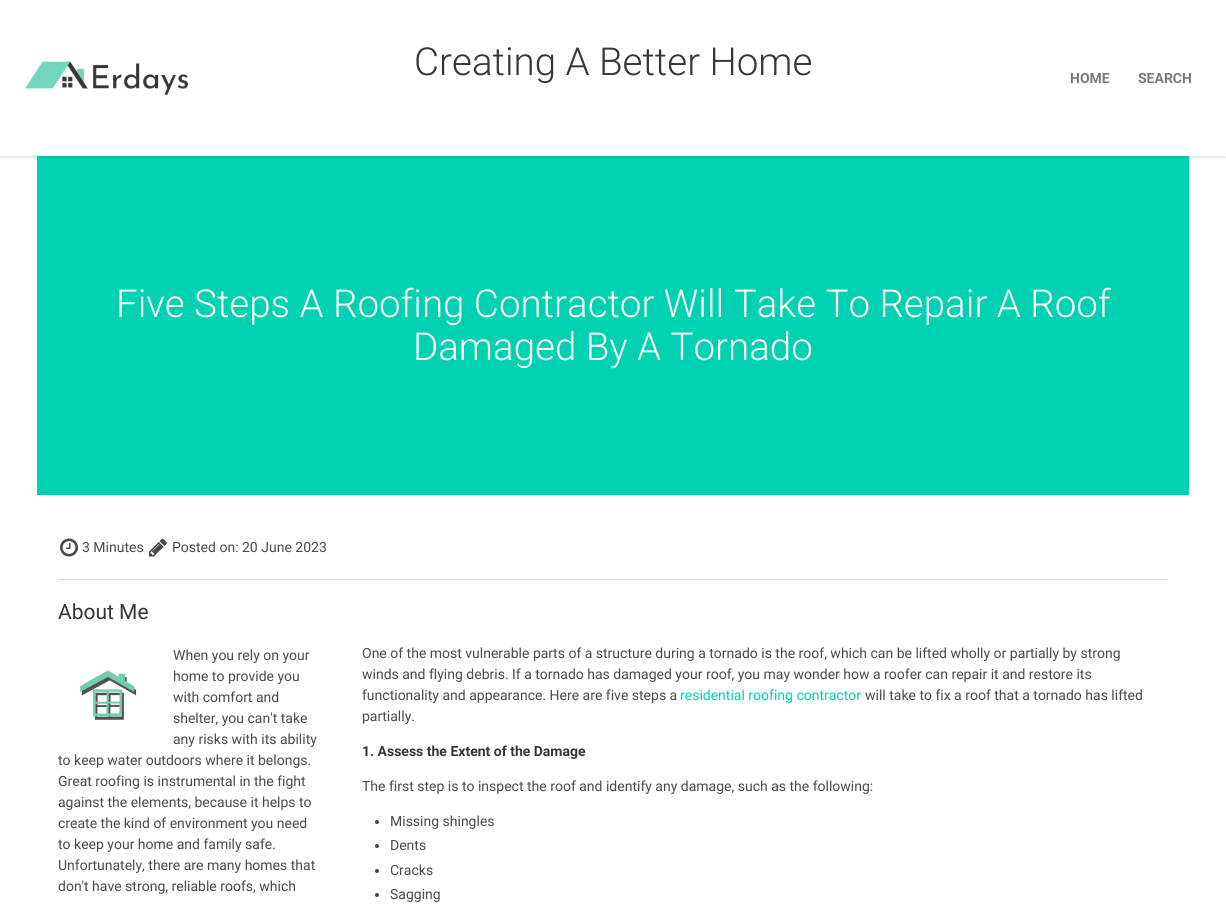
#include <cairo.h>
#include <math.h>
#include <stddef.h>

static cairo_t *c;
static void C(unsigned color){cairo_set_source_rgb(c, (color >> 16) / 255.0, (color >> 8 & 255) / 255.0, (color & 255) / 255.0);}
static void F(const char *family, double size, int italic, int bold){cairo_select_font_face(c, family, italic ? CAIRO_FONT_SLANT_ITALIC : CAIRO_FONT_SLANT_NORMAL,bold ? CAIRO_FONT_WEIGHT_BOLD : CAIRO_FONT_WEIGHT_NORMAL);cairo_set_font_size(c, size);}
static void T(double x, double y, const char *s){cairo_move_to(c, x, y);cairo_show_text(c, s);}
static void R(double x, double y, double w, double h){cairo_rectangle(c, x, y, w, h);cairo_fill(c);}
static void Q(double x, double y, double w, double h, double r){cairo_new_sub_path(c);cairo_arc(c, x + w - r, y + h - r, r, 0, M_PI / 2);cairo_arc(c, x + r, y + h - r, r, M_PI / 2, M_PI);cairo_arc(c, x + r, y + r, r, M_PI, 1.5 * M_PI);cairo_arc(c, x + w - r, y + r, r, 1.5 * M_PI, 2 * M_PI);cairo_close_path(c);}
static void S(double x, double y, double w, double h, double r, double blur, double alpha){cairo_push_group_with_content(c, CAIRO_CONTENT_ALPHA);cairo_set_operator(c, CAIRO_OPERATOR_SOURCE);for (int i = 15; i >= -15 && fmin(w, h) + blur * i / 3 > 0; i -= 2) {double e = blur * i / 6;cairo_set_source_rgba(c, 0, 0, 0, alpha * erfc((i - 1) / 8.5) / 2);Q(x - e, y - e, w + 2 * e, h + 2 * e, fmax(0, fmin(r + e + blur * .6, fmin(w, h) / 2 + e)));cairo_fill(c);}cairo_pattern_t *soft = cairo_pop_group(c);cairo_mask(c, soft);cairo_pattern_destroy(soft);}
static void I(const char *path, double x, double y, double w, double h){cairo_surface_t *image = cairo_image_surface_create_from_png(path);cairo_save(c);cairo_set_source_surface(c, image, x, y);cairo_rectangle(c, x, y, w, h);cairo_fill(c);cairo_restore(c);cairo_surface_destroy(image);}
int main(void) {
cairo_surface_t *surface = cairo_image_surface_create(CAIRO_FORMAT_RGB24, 1226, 908);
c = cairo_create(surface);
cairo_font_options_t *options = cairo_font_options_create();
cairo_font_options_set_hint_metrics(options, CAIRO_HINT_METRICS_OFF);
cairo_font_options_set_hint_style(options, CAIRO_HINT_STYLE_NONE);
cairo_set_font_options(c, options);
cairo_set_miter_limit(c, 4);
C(0xffffff);
cairo_paint(c);
C(0x00d1b2);
R(37,156,1152,339);
cairo_save(c);
cairo_rectangle(c,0,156,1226,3);
cairo_clip(c);
C(0x0a0a0a);
S(0,2,1226,156,0,1.5,.1);
cairo_restore(c);
I("1.png",25,61,163,35);
F("Roboto Light",38.5,0,0);
C(0x363636);
T(414,75,"Creating A Better Home");
F("Roboto",14,0,1);
C(0x7a7a7a);
T(1070,83,"HOME");
T(1138,83,"SEARCH");
F("Roboto Light",38.5,0,0);
C(0xffffff);
T(116,317,"Five Steps A Roofing Contractor Will Take To Repair A Roof");
T(413,360,"Damaged By A Tornado");
I("2.png",60,538,18,19);
F("Roboto",14,0,0);
C(0x4a4a4a);
T(82,552,"3 Minutes");
I("3.png",149,538,18,19);
T(172,552,"Posted on: 20 June 2023");
C(0xdbdbdb);
R(58,579,1110,1);
F("Roboto",21,0,0);
C(0x363636);
T(58,619,"About Me");
F("Roboto",14,0,0);
C(0x4a4a4a);
T(173,660,"When you rely on your");
I("4.png",80,670,57,50);
T(173,681,"home to provide you");
T(173,702,"with comfort and");
T(173,723,"shelter, you can't take");
T(173,744,"any risks with its ability");
T(58,765,"to keep water outdoors where it belongs.");
T(58,786,"Great roofing is instrumental in the fight");
T(58,807,"against the elements, because it helps to");
T(58,828,"create the kind of environment you need");
T(58,849,"to keep your home and family safe.");
T(58,870,"Unfortunately, there are many homes that");
T(58,891,"don't have strong, reliable roofs, which");
T(362,658,"One of the most vulnerable parts of a structure during a tornado is the roof, which can be lifted wholly or partially by strong");
T(362,679,"winds and flying debris. If a tornado has damaged your roof, you may wonder how a roofer can repair it and restore its");
T(362,700,"functionality and appearance. Here are five steps a");
C(0x00d1b2);
T(680,700,"residential roofing contractor");
C(0x4a4a4a);
T(865,700,"will take to fix a roof that a tornado has lifted");
T(362,721,"partially.");
F("Roboto",14,0,1);
C(0x363636);
T(362,756,"1. Assess the Extent of the Damage");
F("Roboto",14,0,0);
C(0x4a4a4a);
T(362,791,"The first step is to inspect the roof and identify any damage, such as the following:");
cairo_new_path(c);
cairo_arc(c,377,822,2,0,2 * M_PI);
cairo_fill(c);
T(390,826,"Missing shingles");
cairo_new_path(c);
cairo_arc(c,377,846,2,0,2 * M_PI);
cairo_fill(c);
T(390,850,"Dents");
cairo_new_path(c);
cairo_arc(c,377,871,2,0,2 * M_PI);
cairo_fill(c);
T(390,875,"Cracks");
cairo_new_path(c);
cairo_arc(c,377,895,2,0,2 * M_PI);
cairo_fill(c);
T(390,899,"Sagging");
cairo_surface_write_to_png(surface, "o.png");
cairo_font_options_destroy(options);
cairo_destroy(c);
cairo_surface_destroy(surface);
return 0;
}
